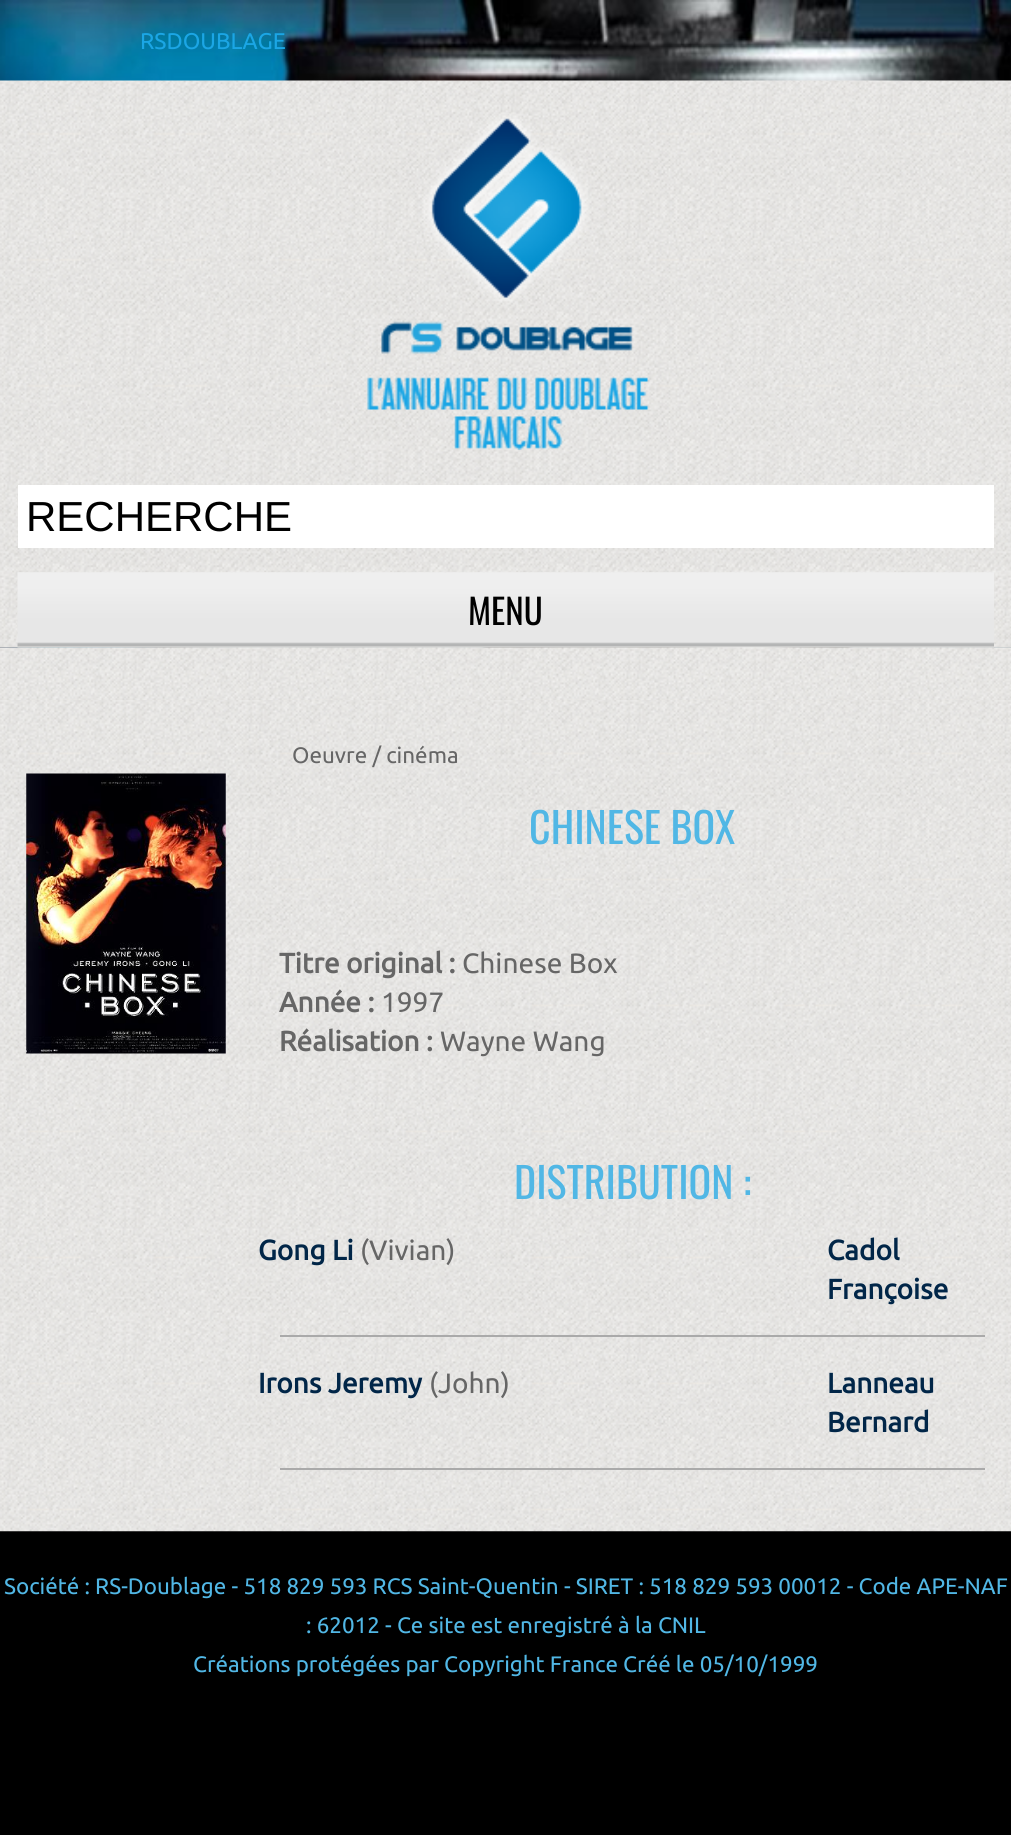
#include <cairo.h>
#include <math.h>
#include <stddef.h>

static cairo_t *c;
static void C(unsigned color){cairo_set_source_rgb(c, (color >> 16) / 255.0, (color >> 8 & 255) / 255.0, (color & 255) / 255.0);}
static void F(const char *family, double size, int italic, int bold){cairo_select_font_face(c, family, italic ? CAIRO_FONT_SLANT_ITALIC : CAIRO_FONT_SLANT_NORMAL,bold ? CAIRO_FONT_WEIGHT_BOLD : CAIRO_FONT_WEIGHT_NORMAL);cairo_set_font_size(c, size);}
static void T(double x, double y, const char *s){cairo_move_to(c, x, y);cairo_show_text(c, s);}
static void R(double x, double y, double w, double h){cairo_rectangle(c, x, y, w, h);cairo_fill(c);}
static void I(const char *path, double x, double y, double w, double h){cairo_surface_t *image = cairo_image_surface_create_from_png(path);cairo_save(c);cairo_set_source_surface(c, image, x, y);cairo_rectangle(c, x, y, w, h);cairo_fill(c);cairo_restore(c);cairo_surface_destroy(image);}
int main(void) {
cairo_surface_t *surface = cairo_image_surface_create(CAIRO_FORMAT_RGB24, 1011, 1835);
c = cairo_create(surface);
cairo_font_options_t *options = cairo_font_options_create();
cairo_font_options_set_hint_metrics(options, CAIRO_HINT_METRICS_OFF);
cairo_font_options_set_hint_style(options, CAIRO_HINT_STYLE_NONE);
cairo_set_font_options(c, options);
cairo_set_miter_limit(c, 4);
C(0x000000);
cairo_paint(c);
I("1.png",0,0,1011,648);
F("Ubuntu",22.75,0,0);
C(0x1ba6e5);
T(140,49,"RSDOUBLAGE");
I("2.png",0,80,1011,568);
I("3.png",367,113,283,337);
C(0xffffff);
R(18,485,976,63);
F("Liberation Sans",42,0,0);
C(0x000000);
T(26,531,"RECHERCHE");
I("4.png",17,572,977,76);
F("Oswald",35,0,0);
T(468,625,"MENU");
I("5.png",0,647,1011,53);
I("6.png",0,700,1011,832);
F("Ubuntu",22.4,0,0);
C(0x666666);
T(292,763,"Oeuvre / cinéma");
I("7.png",26,773,200,281);
F("Oswald",42,0,0);
C(0x51b7e5);
T(529,844,"CHINESE BOX");
F("Ubuntu",28,0,1);
C(0x666666);
T(279,973,"Titre original :");
F("Ubuntu",28,0,0);
T(462,973,"Chinese Box");
F("Ubuntu",28,0,1);
T(279,1012,"Année :");
F("Ubuntu",28,0,0);
T(381,1012,"1997");
F("Ubuntu",28,0,1);
T(279,1051,"Réalisation :");
F("Ubuntu",28,0,0);
T(440,1051,"Wayne Wang");
F("Oswald",42,0,0);
C(0x51b7e5);
T(514,1199,"DISTRIBUTION :");
F("Ubuntu",28,0,1);
C(0x012648);
T(258,1260,"Gong Li");
F("Ubuntu",28,0,0);
C(0x666666);
T(360,1260,"(Vivian)");
F("Ubuntu",28,0,1);
C(0x012648);
T(827,1260,"Cadol");
T(827,1299,"Françoise");
C(0xaaaaaa);
R(280,1335,705,2);
C(0x012648);
T(258,1393,"Irons Jeremy");
F("Ubuntu",28,0,0);
C(0x666666);
T(429,1393,"(John)");
F("Ubuntu",28,0,1);
C(0x012648);
T(827,1393,"Lanneau");
T(827,1432,"Bernard");
C(0xaaaaaa);
R(280,1468,705,2);
F("Ubuntu",22.4,0,0);
C(0x51b7e5);
T(4,1594,"Société : RS-Doublage - 518 829 593 RCS Saint-Quentin - SIRET : 518 829 593 00012 - Code APE-NAF");
T(306,1633,": 62012 - Ce site est enregistré à la CNIL");
T(193,1672,"Créations protégées par Copyright France Créé le 05/10/1999");
cairo_surface_write_to_png(surface, "o.png");
cairo_font_options_destroy(options);
cairo_destroy(c);
cairo_surface_destroy(surface);
return 0;
}
